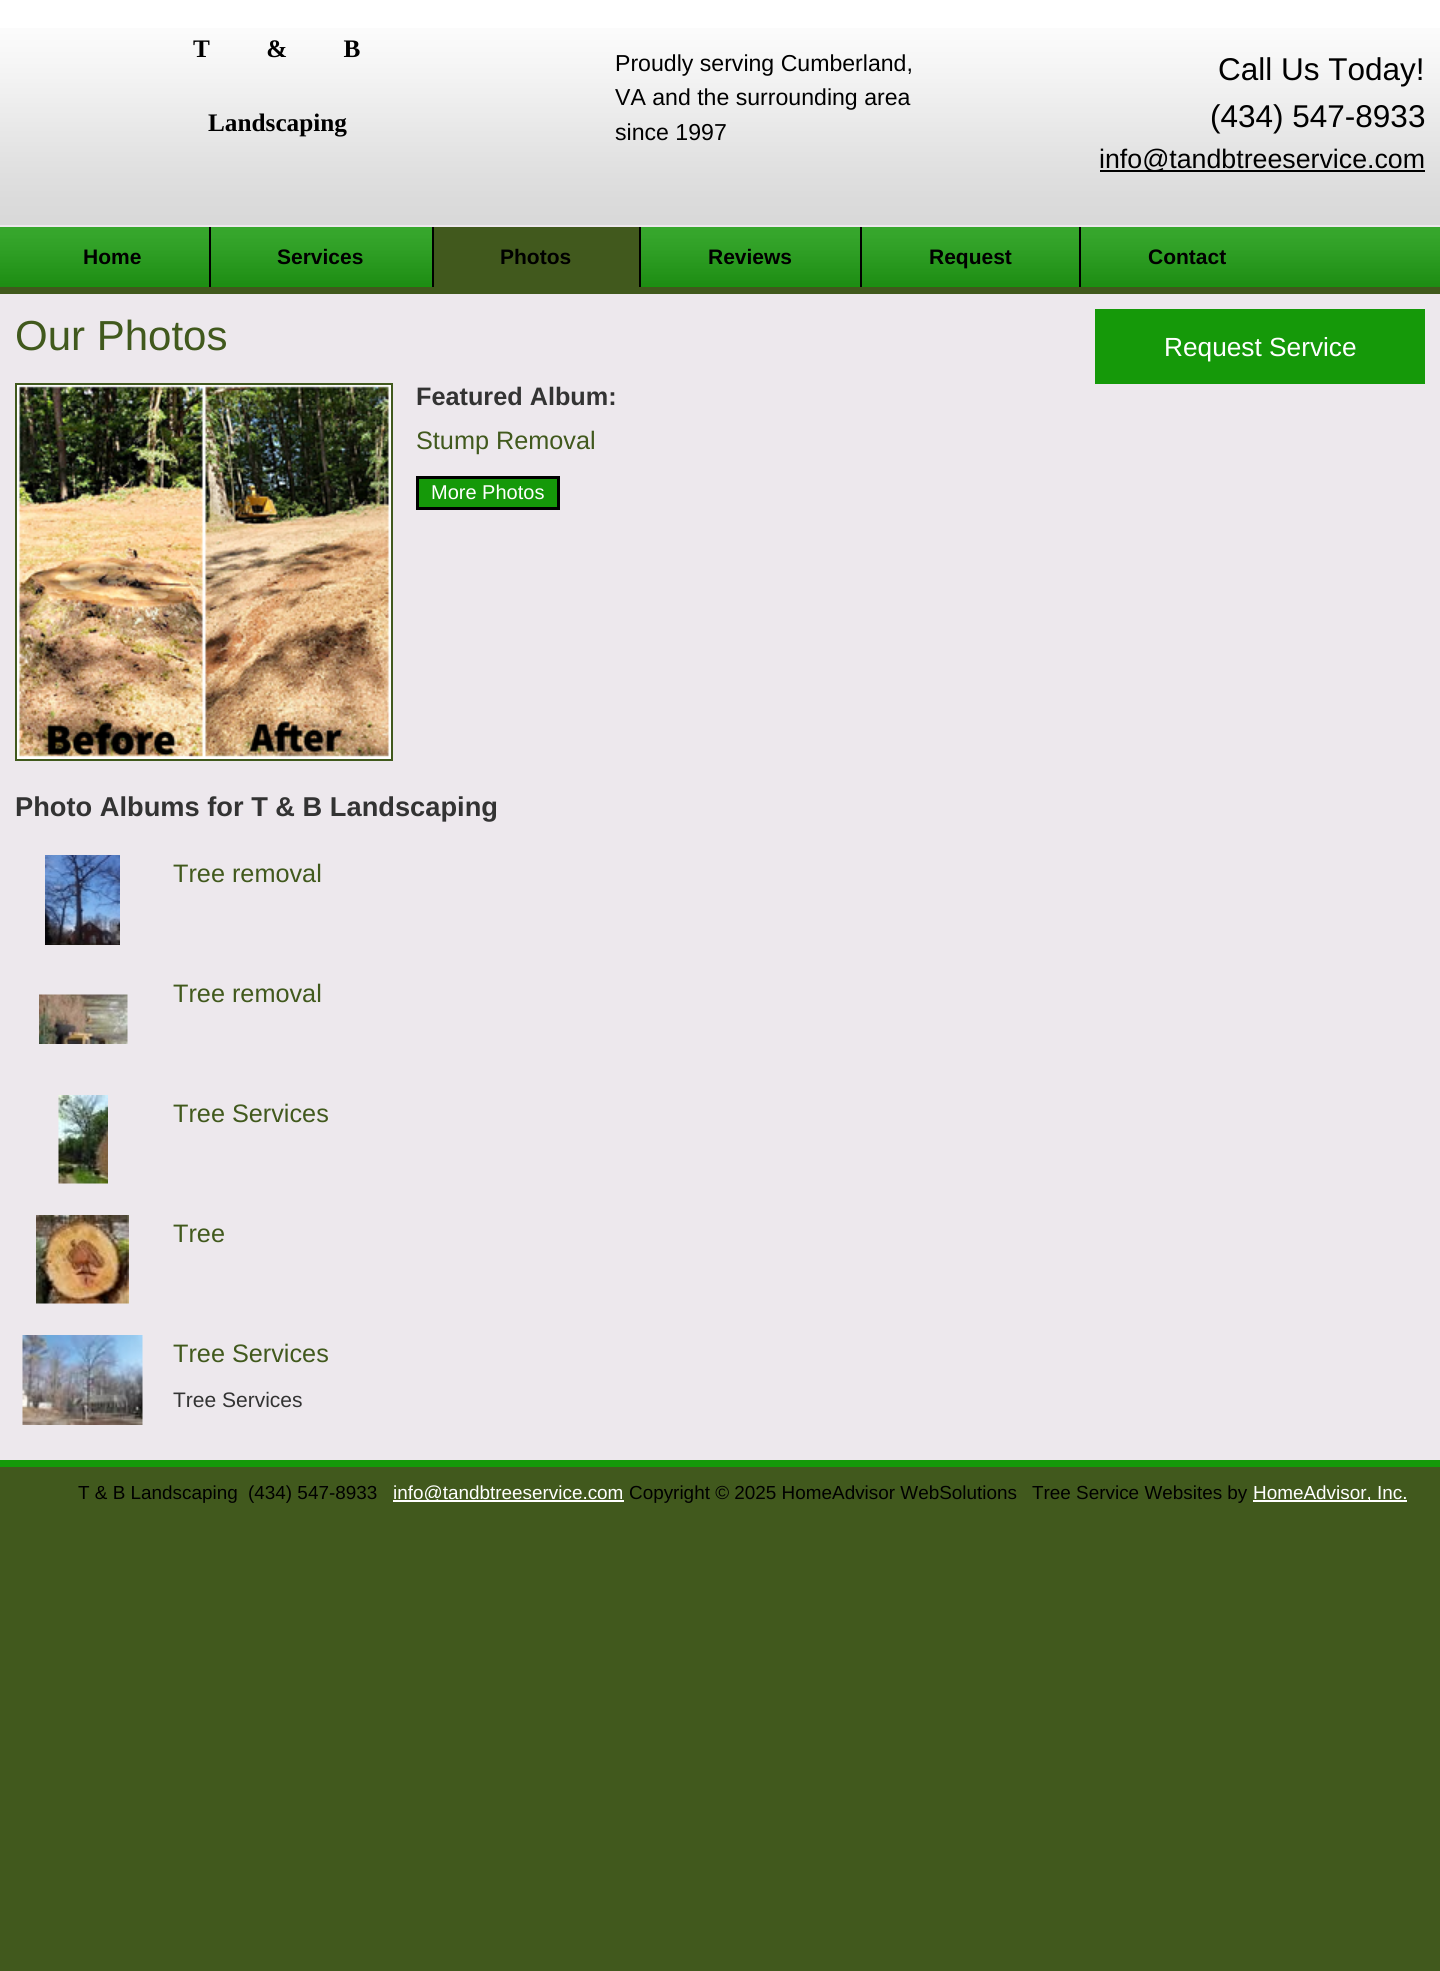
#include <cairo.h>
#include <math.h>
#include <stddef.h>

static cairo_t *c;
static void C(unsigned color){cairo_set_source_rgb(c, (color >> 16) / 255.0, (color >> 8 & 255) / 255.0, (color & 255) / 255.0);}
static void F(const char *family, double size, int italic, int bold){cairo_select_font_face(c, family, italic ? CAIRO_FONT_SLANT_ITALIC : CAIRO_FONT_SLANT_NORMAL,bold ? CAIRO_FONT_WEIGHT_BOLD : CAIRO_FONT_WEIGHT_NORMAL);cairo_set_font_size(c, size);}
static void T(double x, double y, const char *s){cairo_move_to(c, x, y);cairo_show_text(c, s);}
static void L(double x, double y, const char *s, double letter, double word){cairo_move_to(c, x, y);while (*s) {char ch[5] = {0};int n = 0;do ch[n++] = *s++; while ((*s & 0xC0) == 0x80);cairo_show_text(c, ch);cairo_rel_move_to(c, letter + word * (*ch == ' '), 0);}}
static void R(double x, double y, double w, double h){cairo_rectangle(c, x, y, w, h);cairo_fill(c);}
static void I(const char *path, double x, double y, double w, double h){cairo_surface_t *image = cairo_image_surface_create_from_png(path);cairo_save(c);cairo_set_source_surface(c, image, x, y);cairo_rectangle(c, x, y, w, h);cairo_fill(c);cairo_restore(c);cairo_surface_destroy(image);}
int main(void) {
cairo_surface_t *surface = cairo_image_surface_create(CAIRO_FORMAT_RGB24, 1440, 1971);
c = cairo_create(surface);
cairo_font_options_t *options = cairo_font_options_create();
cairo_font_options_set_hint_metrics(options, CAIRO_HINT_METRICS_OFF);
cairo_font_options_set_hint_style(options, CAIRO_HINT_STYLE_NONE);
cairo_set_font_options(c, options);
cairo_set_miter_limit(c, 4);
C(0x41591d);
cairo_paint(c);
C(0xede8ed);
R(0,225,1440,1235);
C(0xffffff);
R(0,0,1440,225);
I("1.png",0,28,1440,197);
F("Liberation Serif",25.25,0,1);
C(0x000000);
L(193,57,"T & B",0,50);
T(208,131,"Landscaping");
F("Liberation Sans",23.1,0,0);
T(615,71,"Proudly serving Cumberland,");
T(615,105,"VA and the surrounding area");
T(615,140,"since 1997");
F("Liberation Sans",31.5,0,0);
T(1218,80,"Call Us Today!");
T(1210,127,"(434) 547-8933");
R(1100,170,325,2);
F("Liberation Sans",26.75,0,0);
T(1099,168,"info@tandbtreeservice.com");
C(0x159909);
R(0,227,1440,60);
I("2.png",0,227,1440,60);
C(0x41591d);
R(0,287,1440,7);
C(0x159909);
R(15,227,1410,60);
I("3.png",15,227,1410,60);
C(0x000000);
R(209,227,2,60);
F("Liberation Sans",21,0,1);
T(83,264,"Home");
R(432,227,2,60);
T(277,264,"Services");
C(0x41591d);
R(434,227,205,60);
C(0x000000);
R(639,227,2,60);
T(500,264,"Photos");
R(860,227,2,60);
T(708,264,"Reviews");
R(1079,227,2,60);
T(929,264,"Request");
T(1148,264,"Contact");
F("Liberation Sans",42,0,0);
C(0x41591d);
T(15,350,"Our Photos");
C(0x159909);
R(1095,309,330,75);
F("Liberation Sans",26.25,0,0);
C(0xffffff);
T(1164,356,"Request Service");
I("4.png",17,385,374,374);
cairo_rectangle(c,16,384,376,376);
C(0x41591d);
cairo_stroke(c);
F("Liberation Sans",25.25,0,1);
C(0x333333);
T(416,405,"Featured Album:");
F("Liberation Sans",25.25,0,0);
C(0x41591d);
T(416,449,"Stump Removal");
C(0x159909);
cairo_rectangle(c,417.5,477.5,141,31);
cairo_fill_preserve(c);
C(0x000000);
cairo_set_line_width(c,3);
cairo_stroke(c);
F("Liberation Sans",20,0,0);
C(0xffffff);
T(431,499,"More Photos");
F("Liberation Sans",27.25,0,1);
C(0x333333);
T(15,816,"Photo Albums for T & B Landscaping");
I("5.png",45,855,75,90);
F("Liberation Sans",25.25,0,0);
C(0x41591d);
T(173,882,"Tree removal");
I("6.png",39,994,89,50);
T(173,1002,"Tree removal");
I("7.png",58,1095,50,89);
T(173,1122,"Tree Services");
I("8.png",36,1215,93,89);
T(173,1242,"Tree");
I("9.png",22,1335,121,90);
T(173,1362,"Tree Services");
F("Liberation Sans",21,0,0);
C(0x333333);
T(173,1407,"Tree Services");
C(0x159909);
R(0,1460,1440,7);
F("Liberation Sans",18.9,0,0);
C(0x000000);
T(78,1499,"T & B Landscaping");
T(248,1499,"(434) 547-8933");
C(0xffffff);
R(393,1500,231,2);
T(393,1499,"info@tandbtreeservice.com");
C(0x000000);
T(629,1499,"Copyright © 2025 HomeAdvisor WebSolutions");
T(1032,1499,"Tree Service Websites by");
C(0xffffff);
R(1253,1500,154,2);
T(1253,1499,"HomeAdvisor, Inc.");
cairo_surface_write_to_png(surface, "o.png");
cairo_font_options_destroy(options);
cairo_destroy(c);
cairo_surface_destroy(surface);
return 0;
}
